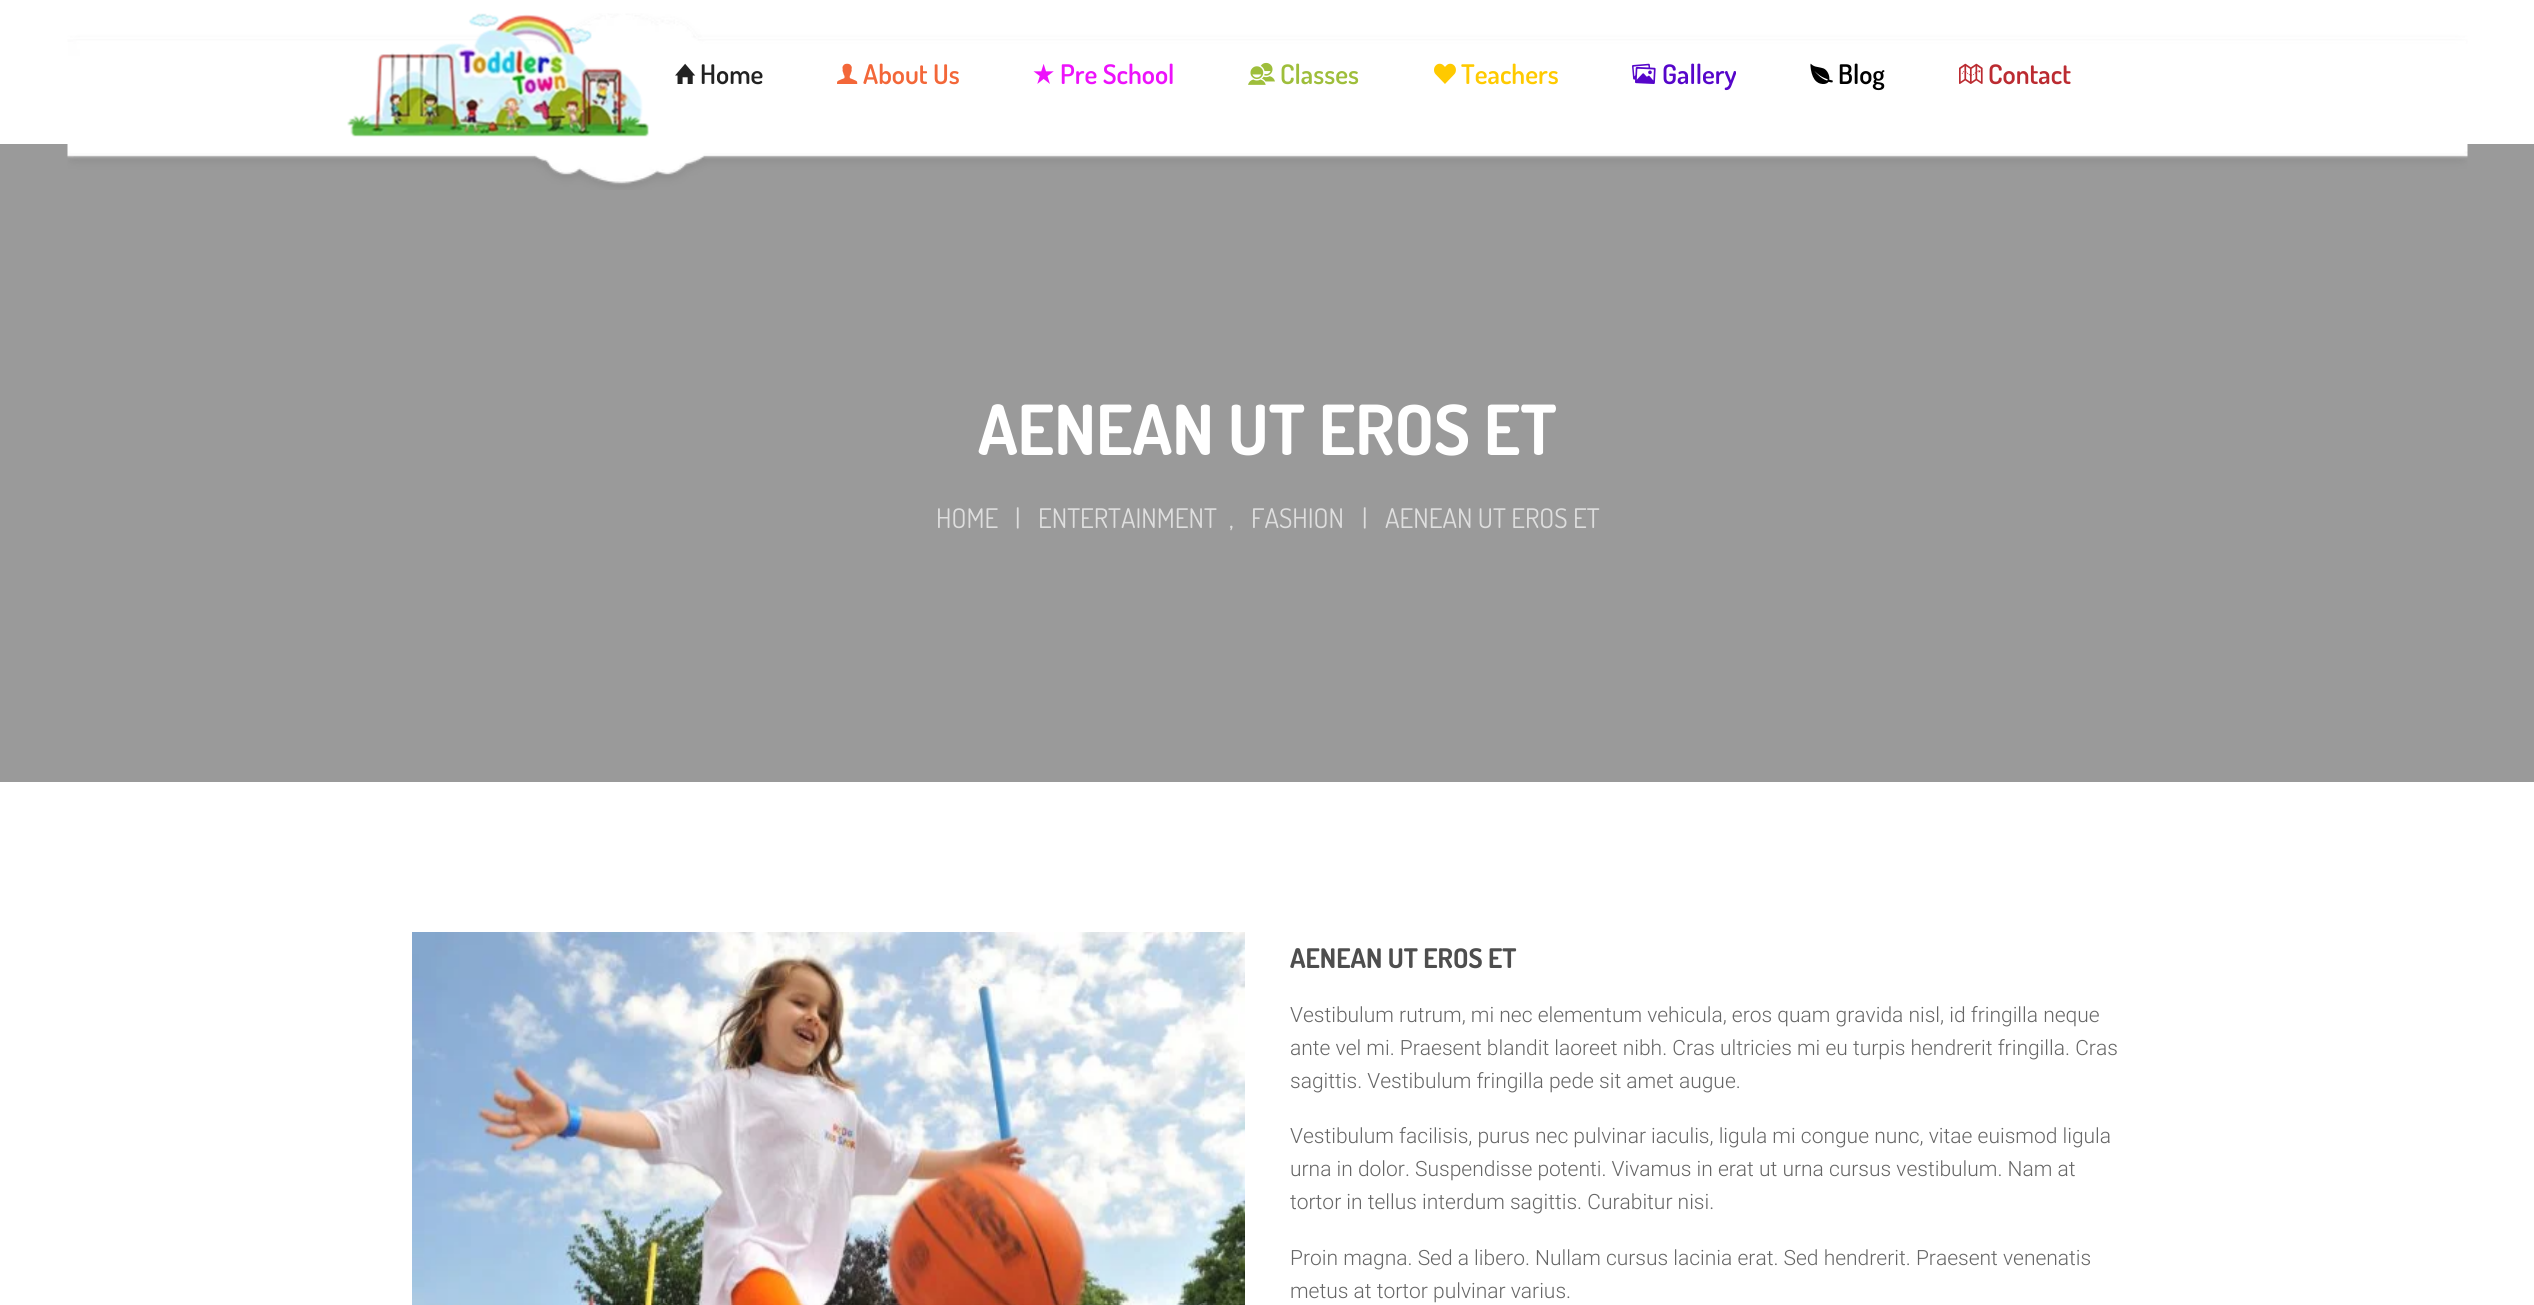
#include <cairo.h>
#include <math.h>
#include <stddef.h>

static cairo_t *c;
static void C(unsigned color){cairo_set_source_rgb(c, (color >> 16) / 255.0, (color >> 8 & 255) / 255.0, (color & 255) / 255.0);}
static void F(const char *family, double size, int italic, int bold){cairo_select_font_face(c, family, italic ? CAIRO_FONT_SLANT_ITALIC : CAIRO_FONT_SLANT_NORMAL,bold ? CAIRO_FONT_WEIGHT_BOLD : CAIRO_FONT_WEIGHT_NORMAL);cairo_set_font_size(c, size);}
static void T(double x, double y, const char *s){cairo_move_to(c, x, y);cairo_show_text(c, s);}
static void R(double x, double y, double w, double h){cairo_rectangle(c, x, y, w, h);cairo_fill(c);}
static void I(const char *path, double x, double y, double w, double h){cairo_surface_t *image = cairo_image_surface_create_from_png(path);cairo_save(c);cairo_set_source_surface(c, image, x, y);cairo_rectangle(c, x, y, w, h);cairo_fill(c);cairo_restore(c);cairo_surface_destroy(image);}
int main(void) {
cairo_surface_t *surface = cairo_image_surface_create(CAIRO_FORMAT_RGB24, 2534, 1305);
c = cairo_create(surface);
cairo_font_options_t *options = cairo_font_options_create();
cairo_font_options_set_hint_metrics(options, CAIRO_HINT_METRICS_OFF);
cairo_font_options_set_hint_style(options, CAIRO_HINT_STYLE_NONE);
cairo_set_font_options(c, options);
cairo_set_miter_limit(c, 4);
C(0xffffff);
cairo_paint(c);
C(0x9a9a9a);
R(0,144,2534,638);
I("1.png",67,13,2401,177);
I("2.png",347,13,302,124);
I("3.png",675,63,21,21);
F("Dosis SemiBold",27,0,0);
C(0x222222);
T(700,84,"Home");
I("4.png",837,63,21,21);
C(0xf36739);
T(863,84,"About Us");
I("5.png",1033,64,21,20);
C(0xed12fb);
T(1060,84,"Pre School");
I("6.png",1248,62,27,23);
C(0x9ebe3b);
T(1280,84,"Classes");
I("7.png",1434,63,22,21);
C(0xffca00);
T(1461,84,"Teachers");
I("8.png",1632,63,24,21);
C(0x5606ca);
T(1662,84,"Gallery");
I("9.png",1810,63,23,21);
C(0x000000);
T(1838,84,"Blog");
I("10.png",1959,63,24,21);
C(0xbb2b31);
T(1988,84,"Contact");
F("Dosis",69,0,1);
C(0xffffff);
T(978,455,"AENEAN UT EROS ET");
F("Dosis",27,0,0);
C(0xdedede);
T(936,528,"HOME");
T(1015,528,"|");
T(1038,528,"ENTERTAINMENT");
T(1229,528,",");
T(1251,528,"FASHION");
T(1362,528,"|");
T(1385,528,"AENEAN UT EROS ET");
I("11.png",412,932,833,373);
F("Dosis",27,0,1);
C(0x4e4e4e);
T(1290,968,"AENEAN UT EROS ET");
F("Roboto Light",21,0,0);
C(0x666666);
T(1290,1022,"Vestibulum rutrum, mi nec elementum vehicula, eros quam gravida nisl, id fringilla neque");
T(1290,1055,"ante vel mi. Praesent blandit laoreet nibh. Cras ultricies mi eu turpis hendrerit fringilla. Cras");
T(1290,1088,"sagittis. Vestibulum fringilla pede sit amet augue.");
T(1290,1143,"Vestibulum facilisis, purus nec pulvinar iaculis, ligula mi congue nunc, vitae euismod ligula");
T(1290,1176,"urna in dolor. Suspendisse potenti. Vivamus in erat ut urna cursus vestibulum. Nam at");
T(1290,1209,"tortor in tellus interdum sagittis. Curabitur nisi.");
T(1290,1265,"Proin magna. Sed a libero. Nullam cursus lacinia erat. Sed hendrerit. Praesent venenatis");
T(1290,1298,"metus at tortor pulvinar varius.");
cairo_surface_write_to_png(surface, "o.png");
cairo_font_options_destroy(options);
cairo_destroy(c);
cairo_surface_destroy(surface);
return 0;
}
